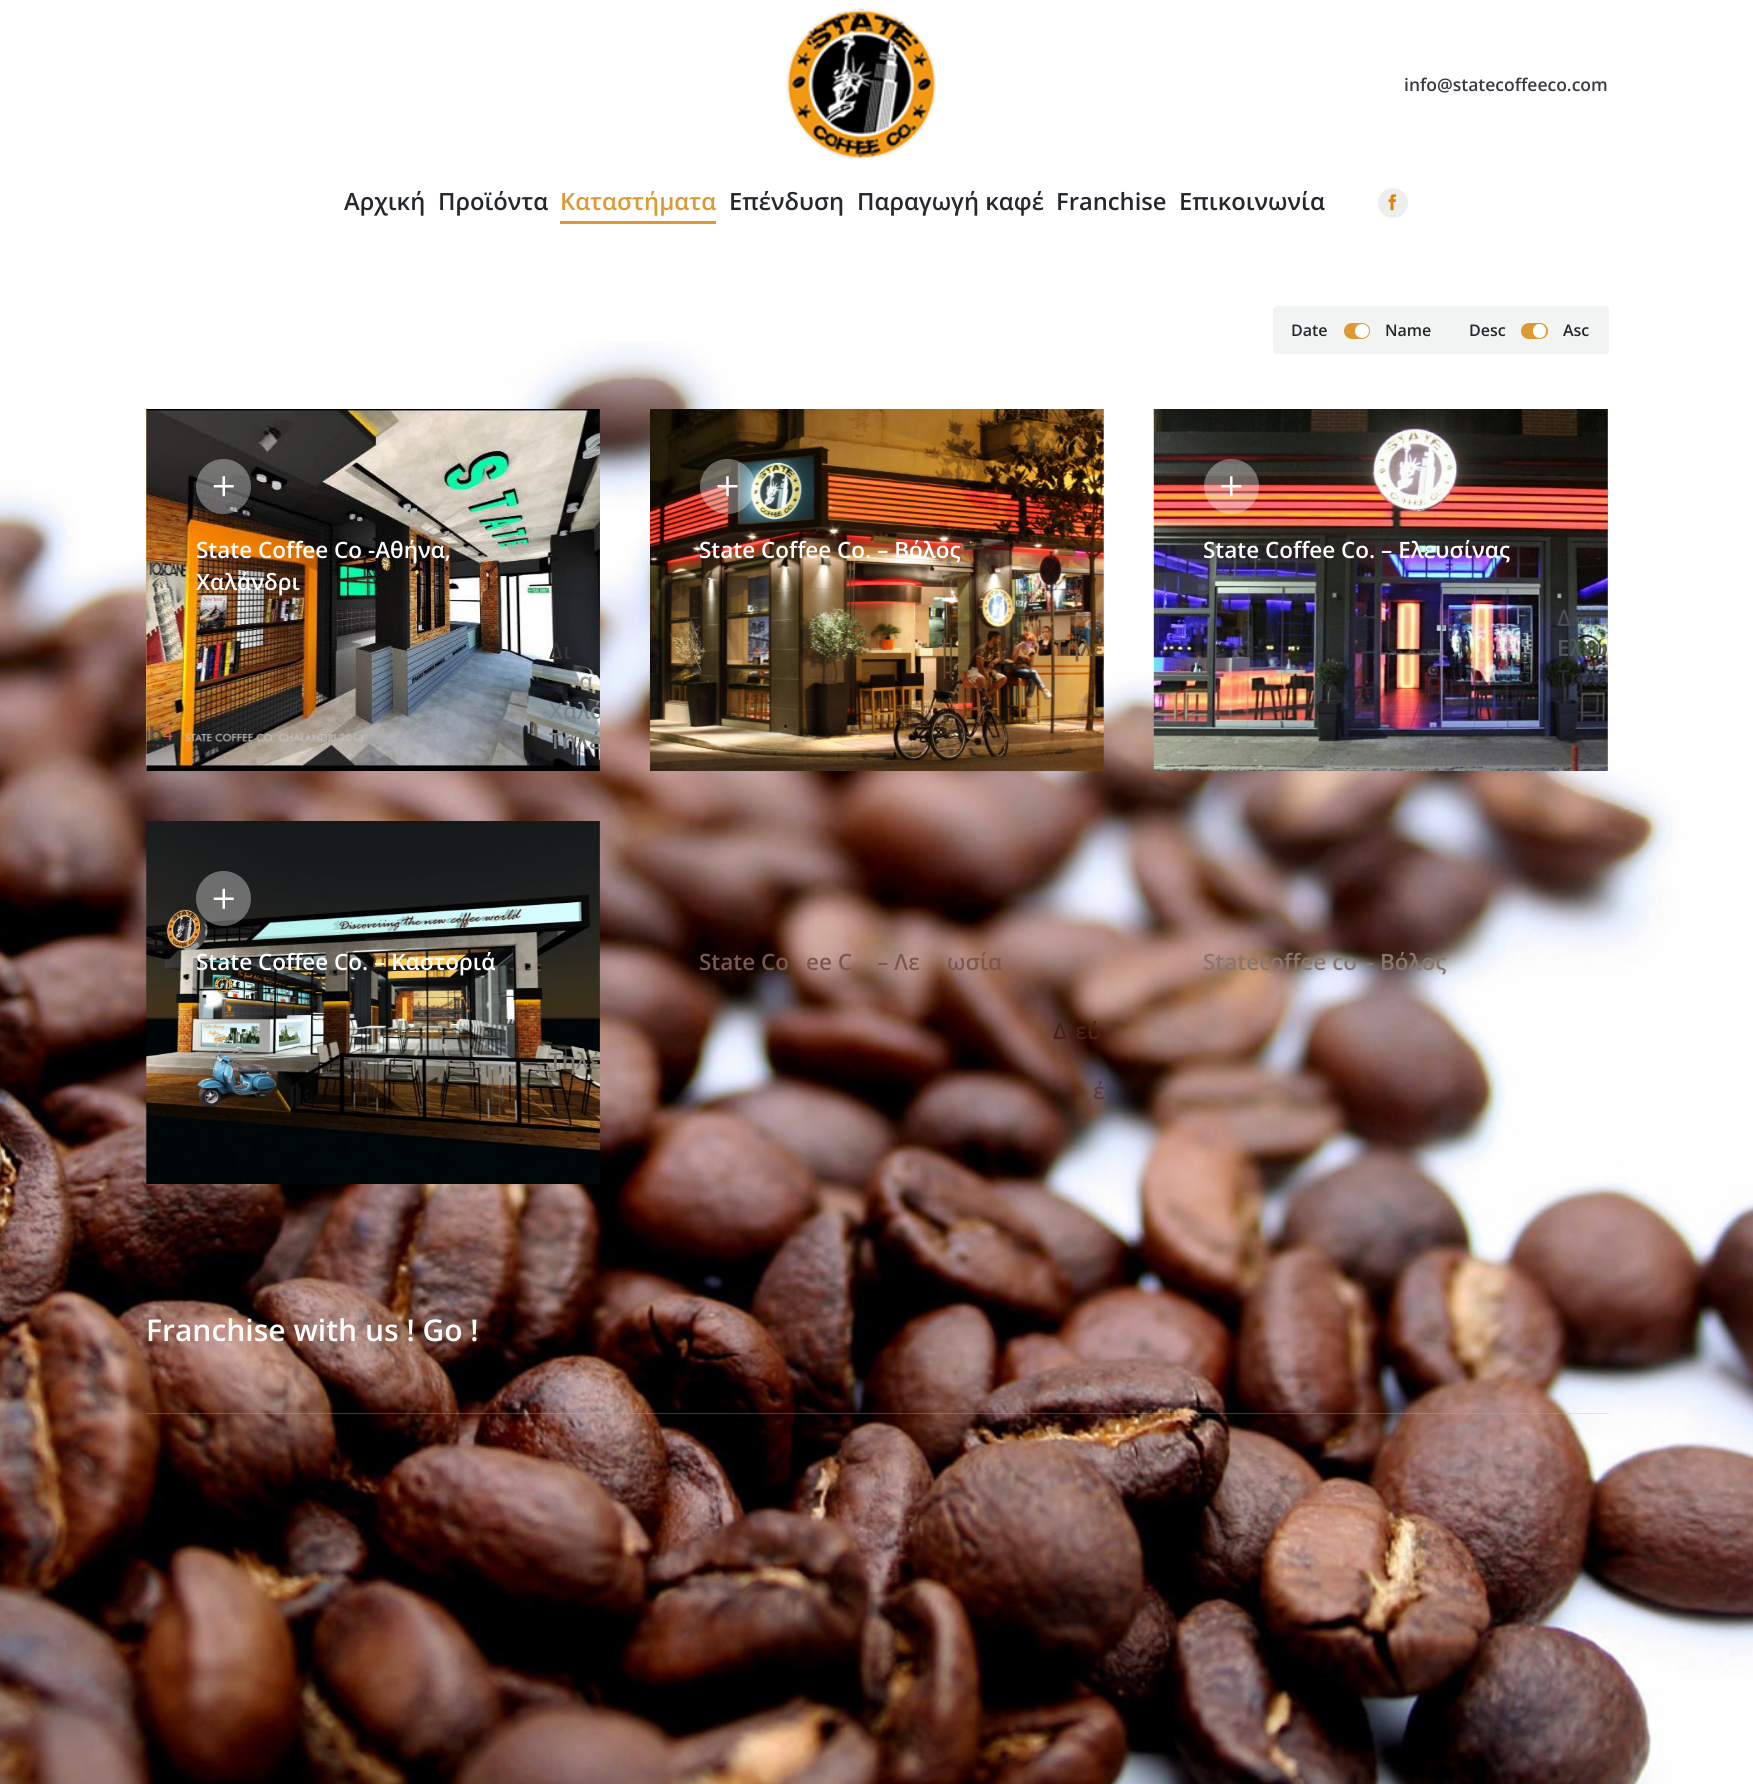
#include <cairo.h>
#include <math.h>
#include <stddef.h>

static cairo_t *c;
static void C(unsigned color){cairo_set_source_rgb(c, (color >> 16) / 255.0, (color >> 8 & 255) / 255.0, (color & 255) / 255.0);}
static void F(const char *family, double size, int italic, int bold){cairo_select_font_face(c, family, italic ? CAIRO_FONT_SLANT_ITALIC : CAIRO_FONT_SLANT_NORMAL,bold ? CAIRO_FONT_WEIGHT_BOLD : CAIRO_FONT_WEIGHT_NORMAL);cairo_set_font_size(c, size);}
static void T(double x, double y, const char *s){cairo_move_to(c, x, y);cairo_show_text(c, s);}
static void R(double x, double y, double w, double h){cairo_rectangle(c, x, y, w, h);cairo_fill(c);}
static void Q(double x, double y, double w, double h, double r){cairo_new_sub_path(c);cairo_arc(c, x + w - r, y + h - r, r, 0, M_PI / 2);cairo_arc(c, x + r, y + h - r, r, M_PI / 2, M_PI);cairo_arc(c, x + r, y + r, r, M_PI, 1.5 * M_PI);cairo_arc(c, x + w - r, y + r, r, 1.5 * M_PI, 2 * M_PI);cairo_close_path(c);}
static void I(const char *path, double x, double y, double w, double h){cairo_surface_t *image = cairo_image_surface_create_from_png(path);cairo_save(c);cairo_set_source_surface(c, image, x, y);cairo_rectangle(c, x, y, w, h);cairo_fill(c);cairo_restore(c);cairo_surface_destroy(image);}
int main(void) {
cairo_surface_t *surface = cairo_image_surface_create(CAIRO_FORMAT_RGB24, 1753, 1784);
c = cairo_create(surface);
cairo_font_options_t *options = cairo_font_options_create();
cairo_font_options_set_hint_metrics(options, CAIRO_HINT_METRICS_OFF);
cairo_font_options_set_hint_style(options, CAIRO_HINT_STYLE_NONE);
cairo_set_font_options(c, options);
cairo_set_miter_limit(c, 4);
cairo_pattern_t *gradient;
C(0xffffff);
cairo_paint(c);
I("1.png",0,341,1753,1443);
I("2.png",786,8,151,152);
F("Open Sans SemiBold",17.5,0,0);
C(0x393940);
T(1404,91,"info@statecoffeeco.com");
F("Open Sans SemiBold",23.75,0,0);
C(0x24282d);
T(344,210,"Αρχική");
T(438,210,"Προϊόντα");
C(0xdd9933);
T(560,210,"Καταστήματα");
R(560,221,156,3);
C(0x24282d);
T(729,210,"Επένδυση");
T(857,210,"Παραγωγή καφέ");
T(1056,210,"Franchise");
T(1179,210,"Επικοινωνία");
C(0xedeeee);
cairo_new_path(c);
cairo_arc(c,1393,203,15,0,2 * M_PI);
cairo_fill(c);
I("3.png",1388,194,8,17);
C(0xf2f3f3);
Q(1273,306,336,48,4);
cairo_fill(c);
F("Open Sans SemiBold",16,0,0);
C(0x24282d);
T(1291,336,"Date");
C(0xdd9933);
Q(1344,323,26,16,8);
cairo_fill(c);
C(0xffffff);
cairo_arc(c,1362,331,7,0,2 * M_PI);
cairo_fill(c);
C(0x24282d);
T(1385,336,"Name");
T(1469,336,"Desc");
C(0xdd9933);
Q(1521,323,27,16,8);
cairo_fill(c);
C(0xffffff);
Q(1533,324,13,14,6.5);
cairo_fill(c);
C(0x24282d);
T(1563,336,"Asc");
gradient = cairo_pattern_create_linear(238,824,508,356);
cairo_pattern_add_color_stop_rgba(gradient,0,0.867,0.773,0.6,1);
cairo_pattern_add_color_stop_rgba(gradient,1,0.867,0.533,0.031,1);
cairo_set_source(c,gradient);
cairo_pattern_destroy(gradient);
R(146,409,454,362);
I("4.png",146,409,454,362);
cairo_set_source_rgba(c,1,1,1,0.35);
cairo_arc(c,223.5,486.5,27.5,0,2 * M_PI);
cairo_fill(c);
I("5.png",213,476,21,21);
F("Open Sans SemiBold",22.5,0,0);
C(0xffffff);
T(196,558,"State Coffee Co -Αθήνα,");
T(196,590,"Χαλάνδρι");
C(0x353538);
T(549,659,"Δι");
C(0x989a96);
T(579,689,"α");
cairo_save(c);
cairo_rectangle(c,146,409,454,362);
cairo_clip(c);
C(0x7b858c);
T(549,719,"Χαλά");
cairo_restore(c);
C(0x74787a);
T(549,749,"Τηλέ");
I("6.png",650,409,454,362);
cairo_set_source_rgba(c,1,1,1,0.35);
cairo_arc(c,727.5,486.5,27.5,0,2 * M_PI);
cairo_fill(c);
I("7.png",717,476,21,21);
C(0xffffff);
T(699,558,"State Coffee Co. – Βόλος");
C(0x795936);
T(1053,656,"Τηλέ");
gradient = cairo_pattern_create_linear(1245,824,1516,356);
cairo_pattern_add_color_stop_rgba(gradient,0,0.867,0.773,0.6,1);
cairo_pattern_add_color_stop_rgba(gradient,1,0.867,0.533,0.031,1);
cairo_set_source(c,gradient);
cairo_pattern_destroy(gradient);
R(1607,409,1,362);
I("8.png",1153,409,455,362);
cairo_set_source_rgba(c,1,1,1,0.35);
cairo_arc(c,1231.5,486.5,27.5,0,2 * M_PI);
cairo_fill(c);
I("9.png",1221,476,21,21);
C(0xffffff);
T(1203,558,"State Coffee Co. – Ελευσίνας");
C(0x484d57);
T(1557,626,"Δ");
C(0x515953);
T(1557,656,"Ελευ");
C(0x24282d);
T(1557,686,"Τηλέ");
I("10.png",146,821,454,363);
cairo_set_source_rgba(c,1,1,1,0.35);
cairo_arc(c,223.5,898.5,27.5,0,2 * M_PI);
cairo_fill(c);
I("11.png",213,888,21,21);
C(0xffffff);
T(196,970,"State Coffee Co. – Καστοριά");
C(0x79756a);
T(549,1069,"Τηλέ");
C(0x7b584f);
T(699,970,"State Co");
T(806,970,"ee C");
T(877,970,"– Λε");
T(947,970,"ωσία");
C(0x482117);
T(1053,1039,"Διεύ");
C(0x5c3d36);
T(1093,1099,"έ");
C(0x8b766d);
T(1203,970,"Statecoffee co – Βόλος");
F("Open Sans SemiBold",30,0,0);
C(0xffffff);
T(146,1341,"Franchise with us ! Go !");
cairo_set_source_rgba(c,0.702,0.71,0.714,0.32);
R(146,1413,1463,1);
cairo_surface_write_to_png(surface, "o.png");
cairo_font_options_destroy(options);
cairo_destroy(c);
cairo_surface_destroy(surface);
return 0;
}
